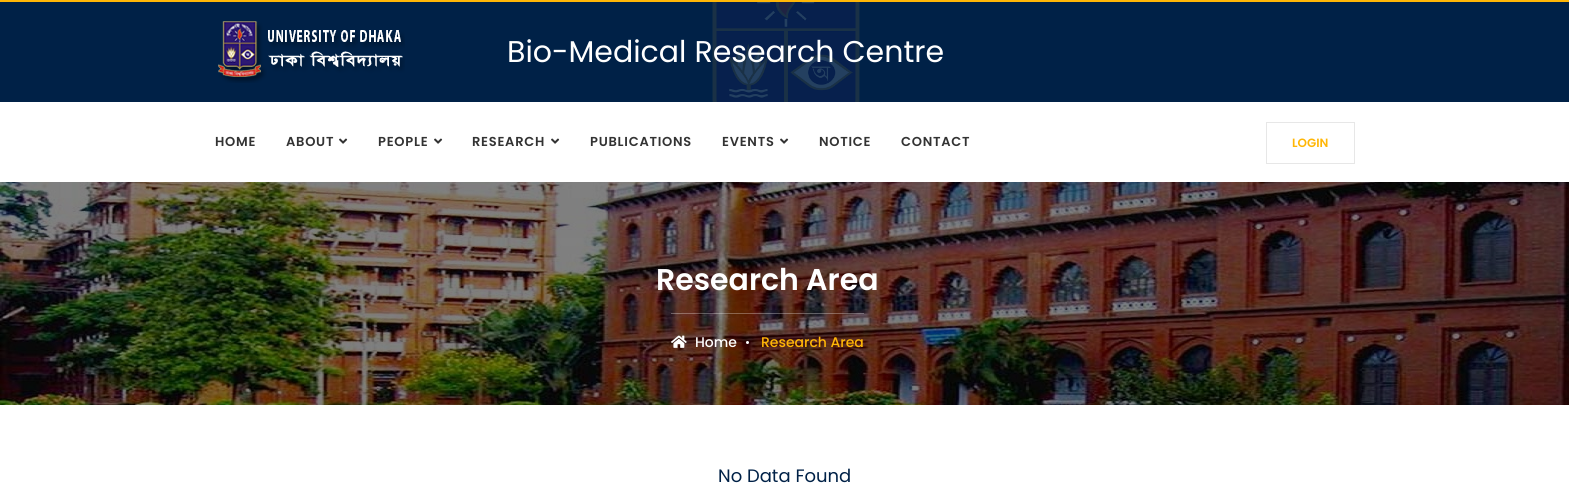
#include <cairo.h>
#include <math.h>
#include <stddef.h>

static cairo_t *c;
static void C(unsigned color){cairo_set_source_rgb(c, (color >> 16) / 255.0, (color >> 8 & 255) / 255.0, (color & 255) / 255.0);}
static void F(const char *family, double size, int italic, int bold){cairo_select_font_face(c, family, italic ? CAIRO_FONT_SLANT_ITALIC : CAIRO_FONT_SLANT_NORMAL,bold ? CAIRO_FONT_WEIGHT_BOLD : CAIRO_FONT_WEIGHT_NORMAL);cairo_set_font_size(c, size);}
static void T(double x, double y, const char *s){cairo_move_to(c, x, y);cairo_show_text(c, s);}
static void L(double x, double y, const char *s, double letter, double word){cairo_move_to(c, x, y);while (*s) {char ch[5] = {0};int n = 0;do ch[n++] = *s++; while ((*s & 0xC0) == 0x80);cairo_show_text(c, ch);cairo_rel_move_to(c, letter + word * (*ch == ' '), 0);}}
static void R(double x, double y, double w, double h){cairo_rectangle(c, x, y, w, h);cairo_fill(c);}
static void I(const char *path, double x, double y, double w, double h){cairo_surface_t *image = cairo_image_surface_create_from_png(path);cairo_save(c);cairo_set_source_surface(c, image, x, y);cairo_rectangle(c, x, y, w, h);cairo_fill(c);cairo_restore(c);cairo_surface_destroy(image);}
int main(void) {
cairo_surface_t *surface = cairo_image_surface_create(CAIRO_FORMAT_RGB24, 1569, 492);
c = cairo_create(surface);
cairo_font_options_t *options = cairo_font_options_create();
cairo_font_options_set_hint_metrics(options, CAIRO_HINT_METRICS_OFF);
cairo_font_options_set_hint_style(options, CAIRO_HINT_STYLE_NONE);
cairo_set_font_options(c, options);
cairo_set_miter_limit(c, 4);
C(0xffffff);
cairo_paint(c);
C(0x002147);
R(0,2,1569,100);
I("1.png",712,2,148,100);
C(0xffb606);
R(0,0,1569,2);
I("2.png",218,21,187,62);
F("Poppins",30,0,0);
C(0xffffff);
T(507,62,"Bio-Medical Research Centre");
F("Poppins SemiBold",13,0,0);
C(0x333333);
L(215,146,"HOME",.75,0);
L(286,146,"ABOUT",.75,0);
I("3.png",339,138,9,6);
L(378,146,"PEOPLE",.75,0);
I("3.png",434,138,9,6);
L(472,146,"RESEARCH",.75,0);
I("3.png",551,138,9,6);
L(590,146,"PUBLICATIONS",.75,0);
L(722,146,"EVENTS",.75,0);
I("3.png",780,138,9,6);
L(819,146,"NOTICE",.75,0);
L(901,146,"CONTACT",.75,0);
cairo_rectangle(c,1266.5,122.5,88,41);
C(0xe7e7e7);
cairo_set_line_width(c,1);
cairo_stroke(c);
F("Poppins SemiBold",12,0,0);
C(0xffb606);
T(1292,147,"LOGIN");
I("4.png",0,182,1569,223);
F("Poppins SemiBold",30,0,0);
C(0xffffff);
T(656,290,"Research Area");
cairo_set_source_rgba(c,1,1,1,0.3);
R(671,313,193,1);
I("5.png",671,335,16,13);
F("Poppins Medium",14,0,0);
C(0xffffff);
T(695,347,"Home");
cairo_new_path(c);
cairo_arc(c,747.5,342.5,1.5,0,2 * M_PI);
cairo_fill(c);
C(0xffb606);
T(761,347,"Research Area");
F("Poppins",18,0,0);
C(0x002147);
T(718,482,"No Data Found");
cairo_surface_write_to_png(surface, "o.png");
cairo_font_options_destroy(options);
cairo_destroy(c);
cairo_surface_destroy(surface);
return 0;
}
